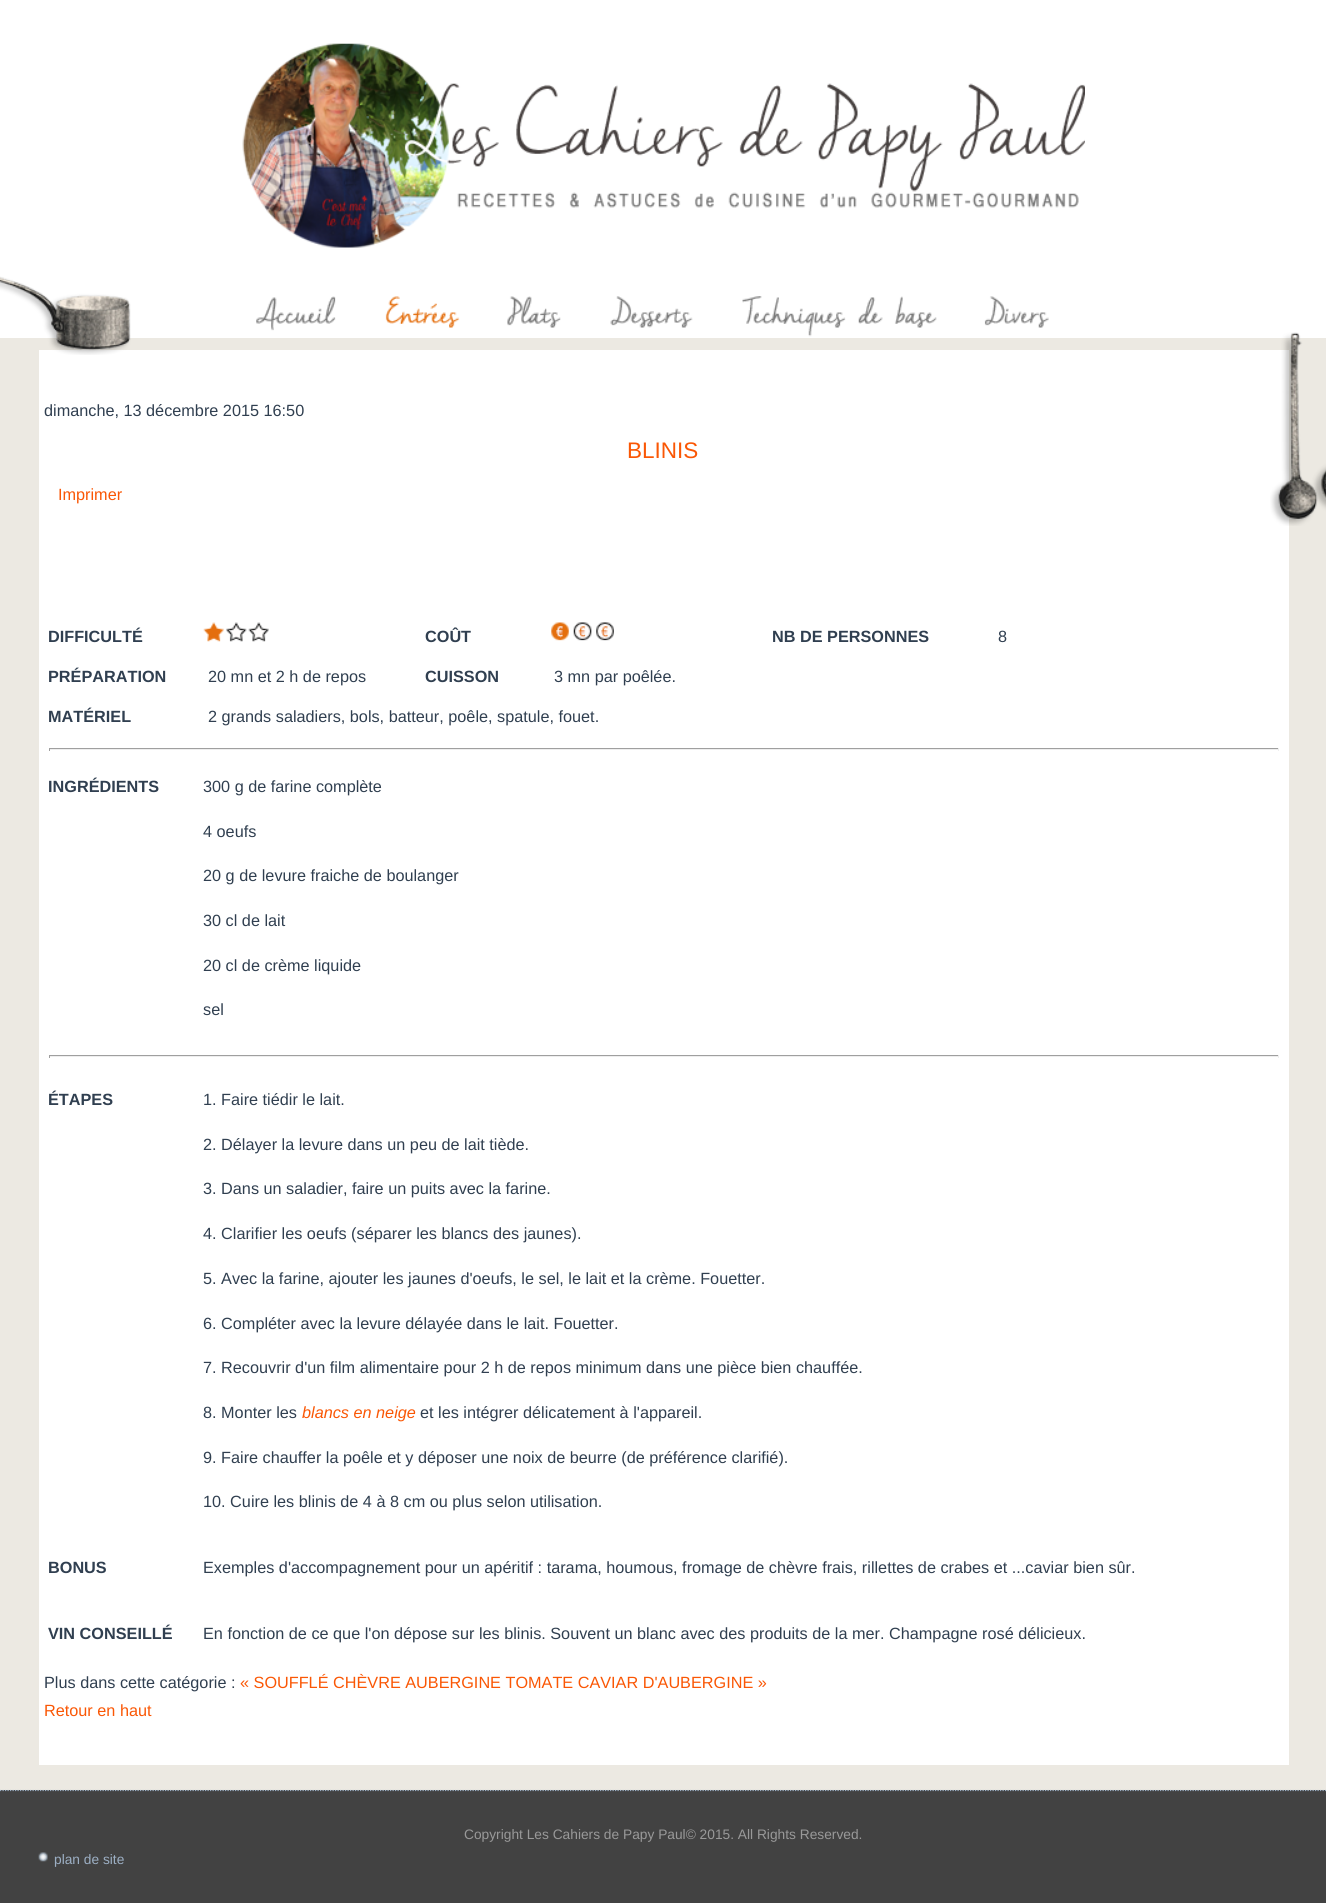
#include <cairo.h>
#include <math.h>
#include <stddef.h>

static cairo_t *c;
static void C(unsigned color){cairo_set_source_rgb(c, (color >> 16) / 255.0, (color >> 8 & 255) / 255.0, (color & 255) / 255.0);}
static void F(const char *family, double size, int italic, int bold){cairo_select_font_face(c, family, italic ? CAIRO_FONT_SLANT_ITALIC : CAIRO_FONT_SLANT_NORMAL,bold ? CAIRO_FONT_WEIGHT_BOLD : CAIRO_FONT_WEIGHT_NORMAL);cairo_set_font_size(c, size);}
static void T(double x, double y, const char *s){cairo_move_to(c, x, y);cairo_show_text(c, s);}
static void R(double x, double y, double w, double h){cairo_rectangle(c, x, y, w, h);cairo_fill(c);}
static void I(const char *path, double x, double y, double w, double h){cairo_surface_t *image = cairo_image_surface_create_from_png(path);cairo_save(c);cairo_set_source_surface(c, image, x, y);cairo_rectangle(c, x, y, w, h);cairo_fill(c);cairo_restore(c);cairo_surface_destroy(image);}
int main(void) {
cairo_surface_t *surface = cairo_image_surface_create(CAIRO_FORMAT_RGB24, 1326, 1903);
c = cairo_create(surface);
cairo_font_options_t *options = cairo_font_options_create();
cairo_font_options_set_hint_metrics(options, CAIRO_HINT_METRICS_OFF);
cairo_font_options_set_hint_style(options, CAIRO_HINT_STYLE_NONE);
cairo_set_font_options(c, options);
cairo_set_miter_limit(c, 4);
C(0xece9e2);
cairo_paint(c);
C(0xffffff);
R(0,0,1326,338);
I("1.png",242,43,843,205);
R(39,350,1250,1415);
I("2.png",0,276,131,79);
I("3.png",256,296,80,35);
I("4.png",385,296,75,32);
I("5.png",507,296,54,32);
I("6.png",610,296,83,32);
I("7.png",742,296,195,41);
I("8.png",984,296,65,32);
F("Liberation Sans",16.25,0,0);
C(0x303f50);
T(44,416,"dimanche, 13 décembre 2015 16:50");
F("Liberation Sans",22.5,0,0);
C(0xfa5705);
T(627,458,"BLINIS");
F("Liberation Sans",16.25,0,0);
T(58,500,"Imprimer");
F("Liberation Sans",16.25,0,1);
C(0x303f50);
T(48,642,"DIFFICULTÉ");
I("9.png",203,622,66,20);
T(425,642,"COÛT");
I("10.png",551,622,63,19);
T(772,642,"NB DE PERSONNES");
F("Liberation Sans",16.25,0,0);
T(998,642,"8");
F("Liberation Sans",16.25,0,1);
T(48,682,"PRÉPARATION");
F("Liberation Sans",16.25,0,0);
T(208,682,"20 mn et 2 h de repos");
F("Liberation Sans",16.25,0,1);
T(425,682,"CUISSON");
F("Liberation Sans",16.25,0,0);
T(554,682,"3 mn par poêlée.");
F("Liberation Sans",16.25,0,1);
T(48,722,"MATÉRIEL");
F("Liberation Sans",16.25,0,0);
T(208,722,"2 grands saladiers, bols, batteur, poêle, spatule, fouet.");
C(0x9f9f9f);
R(49,748,1230,1);
C(0xeeeeee);
R(1278,748,1,3);
R(49,749,1230,1);
C(0x9f9f9f);
R(49,748,1,3);
F("Liberation Sans",16.25,0,1);
C(0x303f50);
T(48,792,"INGRÉDIENTS");
F("Liberation Sans",16.25,0,0);
T(203,792,"300 g de farine complète");
T(203,837,"4 oeufs");
T(203,881,"20 g de levure fraiche de boulanger");
T(203,926,"30 cl de lait");
T(203,971,"20 cl de crème liquide");
T(203,1015,"sel");
C(0x9f9f9f);
R(49,1055,1230,1);
C(0xeeeeee);
R(1278,1055,1,3);
R(49,1056,1230,1);
C(0x9f9f9f);
R(49,1055,1,3);
F("Liberation Sans",16.25,0,1);
C(0x303f50);
T(48,1105,"ÉTAPES");
F("Liberation Sans",16.25,0,0);
T(203,1105,"1. Faire tiédir le lait.");
T(203,1150,"2. Délayer la levure dans un peu de lait tiède.");
T(203,1194,"3. Dans un saladier, faire un puits avec la farine.");
T(203,1239,"4. Clarifier les oeufs (séparer les blancs des jaunes).");
T(203,1284,"5. Avec la farine, ajouter les jaunes d'oeufs, le sel, le lait et la crème. Fouetter.");
T(203,1329,"6. Compléter avec la levure délayée dans le lait. Fouetter.");
T(203,1373,"7. Recouvrir d'un film alimentaire pour 2 h de repos minimum dans une pièce bien chauffée.");
T(203,1418,"8. Monter les");
F("Liberation Sans",16.25,1,0);
C(0xfa5705);
T(302,1418,"blancs en neige");
F("Liberation Sans",16.25,0,0);
C(0x303f50);
T(420,1418,"et les intégrer délicatement à l'appareil.");
T(203,1463,"9. Faire chauffer la poêle et y déposer une noix de beurre (de préférence clarifié).");
T(203,1507,"10. Cuire les blinis de 4 à 8 cm ou plus selon utilisation.");
F("Liberation Sans",16.25,0,1);
T(48,1573,"BONUS");
F("Liberation Sans",16.25,0,0);
T(203,1573,"Exemples d'accompagnement pour un apéritif : tarama, houmous, fromage de chèvre frais, rillettes de crabes et ...caviar bien sûr.");
F("Liberation Sans",16.25,0,1);
T(48,1639,"VIN CONSEILLÉ");
F("Liberation Sans",16.25,0,0);
T(203,1639,"En fonction de ce que l'on dépose sur les blinis. Souvent un blanc avec des produits de la mer. Champagne rosé délicieux.");
T(44,1688,"Plus dans cette catégorie :");
C(0xfa5705);
T(240,1688,"« SOUFFLÉ CHÈVRE AUBERGINE TOMATE CAVIAR D'AUBERGINE »");
T(44,1716,"Retour en haut");
I("11.png",1270,332,56,194);
C(0x424242);
R(0,1790,1326,113);
cairo_new_path(c);
cairo_move_to(c,0,1790.5);
cairo_line_to(c,1326,1790.5);
C(0x9cafc4);
cairo_set_line_width(c,1.2);
cairo_set_dash(c,(double[]){1.25,1.25},2,0);
cairo_stroke(c);
F("Liberation Sans",13.75,0,0);
C(0x999999);
T(464,1839,"Copyright Les Cahiers de Papy Paul© 2015. All Rights Reserved.");
I("12.png",38,1852,10,10);
C(0x9cafc4);
T(54,1864,"plan de site");
cairo_surface_write_to_png(surface, "o.png");
cairo_font_options_destroy(options);
cairo_destroy(c);
cairo_surface_destroy(surface);
return 0;
}
